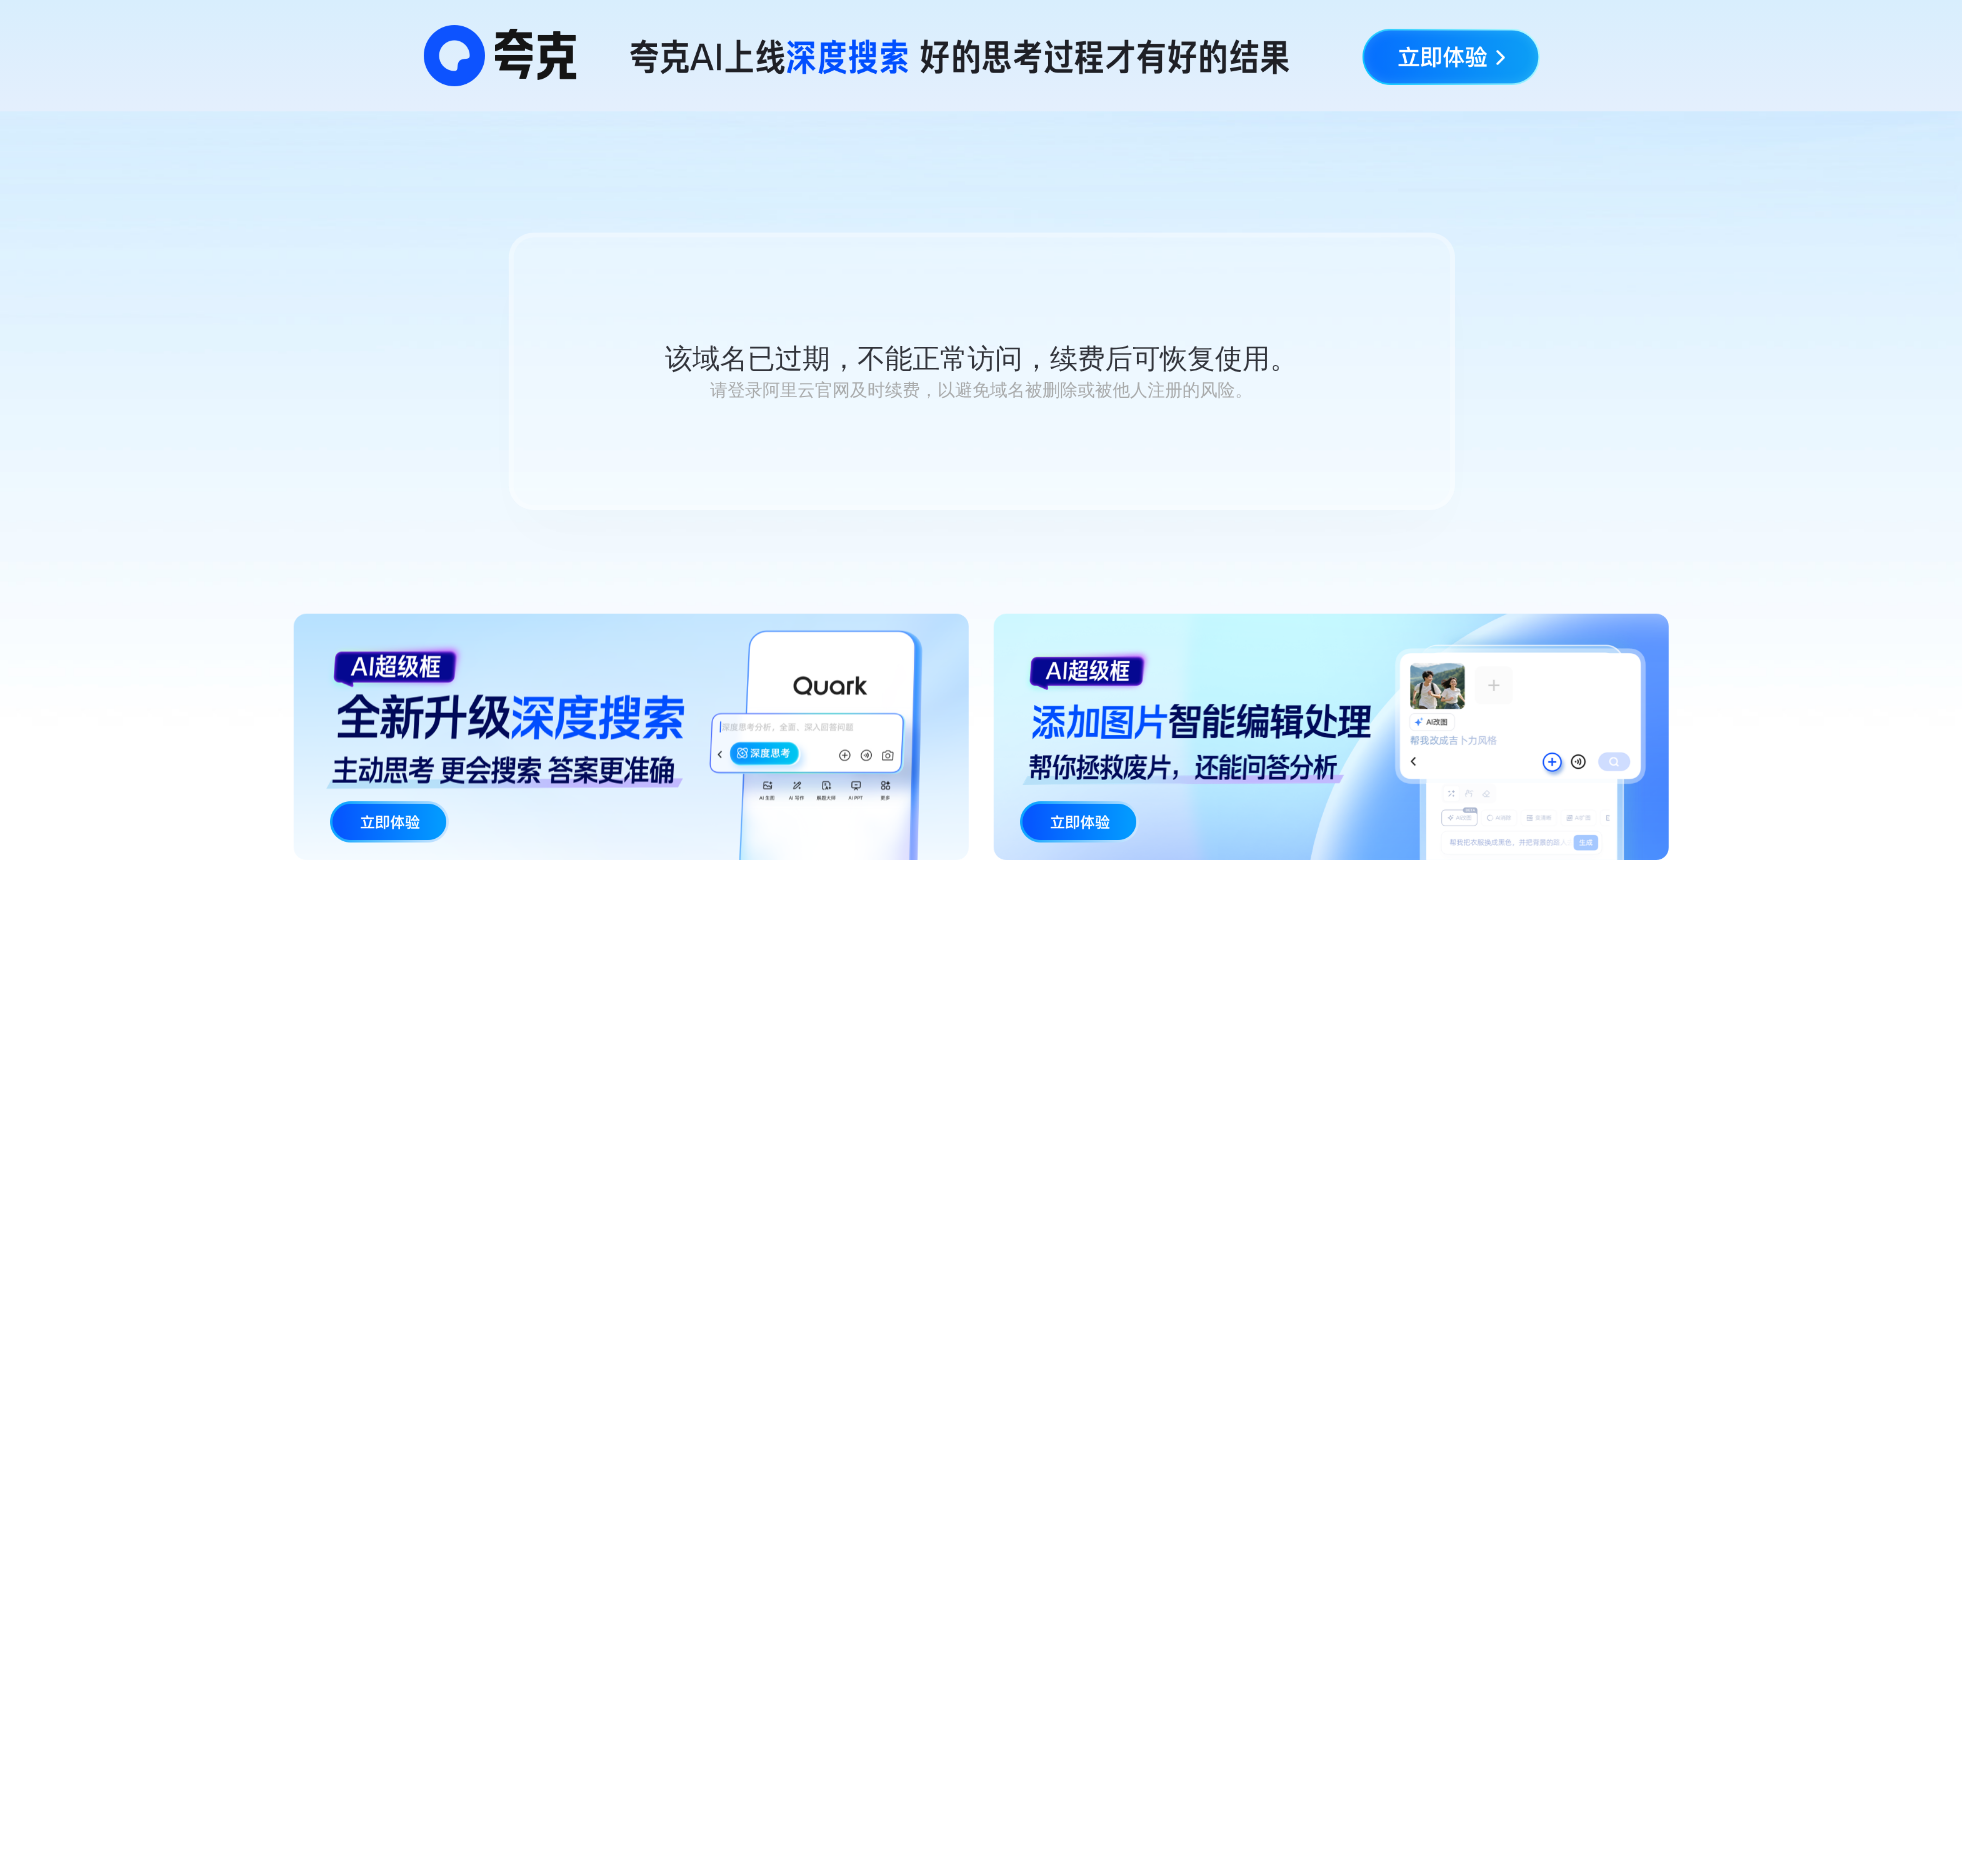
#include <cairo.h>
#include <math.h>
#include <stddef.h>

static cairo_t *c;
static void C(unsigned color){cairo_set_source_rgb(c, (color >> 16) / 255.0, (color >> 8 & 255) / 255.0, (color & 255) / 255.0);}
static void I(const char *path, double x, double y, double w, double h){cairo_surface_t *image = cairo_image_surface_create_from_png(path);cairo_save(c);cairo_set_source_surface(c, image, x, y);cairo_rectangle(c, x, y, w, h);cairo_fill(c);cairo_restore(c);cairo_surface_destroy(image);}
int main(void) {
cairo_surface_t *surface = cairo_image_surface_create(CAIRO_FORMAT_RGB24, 1962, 1850);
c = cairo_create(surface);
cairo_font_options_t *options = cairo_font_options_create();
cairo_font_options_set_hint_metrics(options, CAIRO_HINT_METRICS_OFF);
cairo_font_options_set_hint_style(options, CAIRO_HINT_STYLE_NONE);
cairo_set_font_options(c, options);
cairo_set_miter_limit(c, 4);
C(0xffffff);
cairo_paint(c);
I("1.png",0,0,1962,860);
cairo_surface_write_to_png(surface, "o.png");
cairo_font_options_destroy(options);
cairo_destroy(c);
cairo_surface_destroy(surface);
return 0;
}
